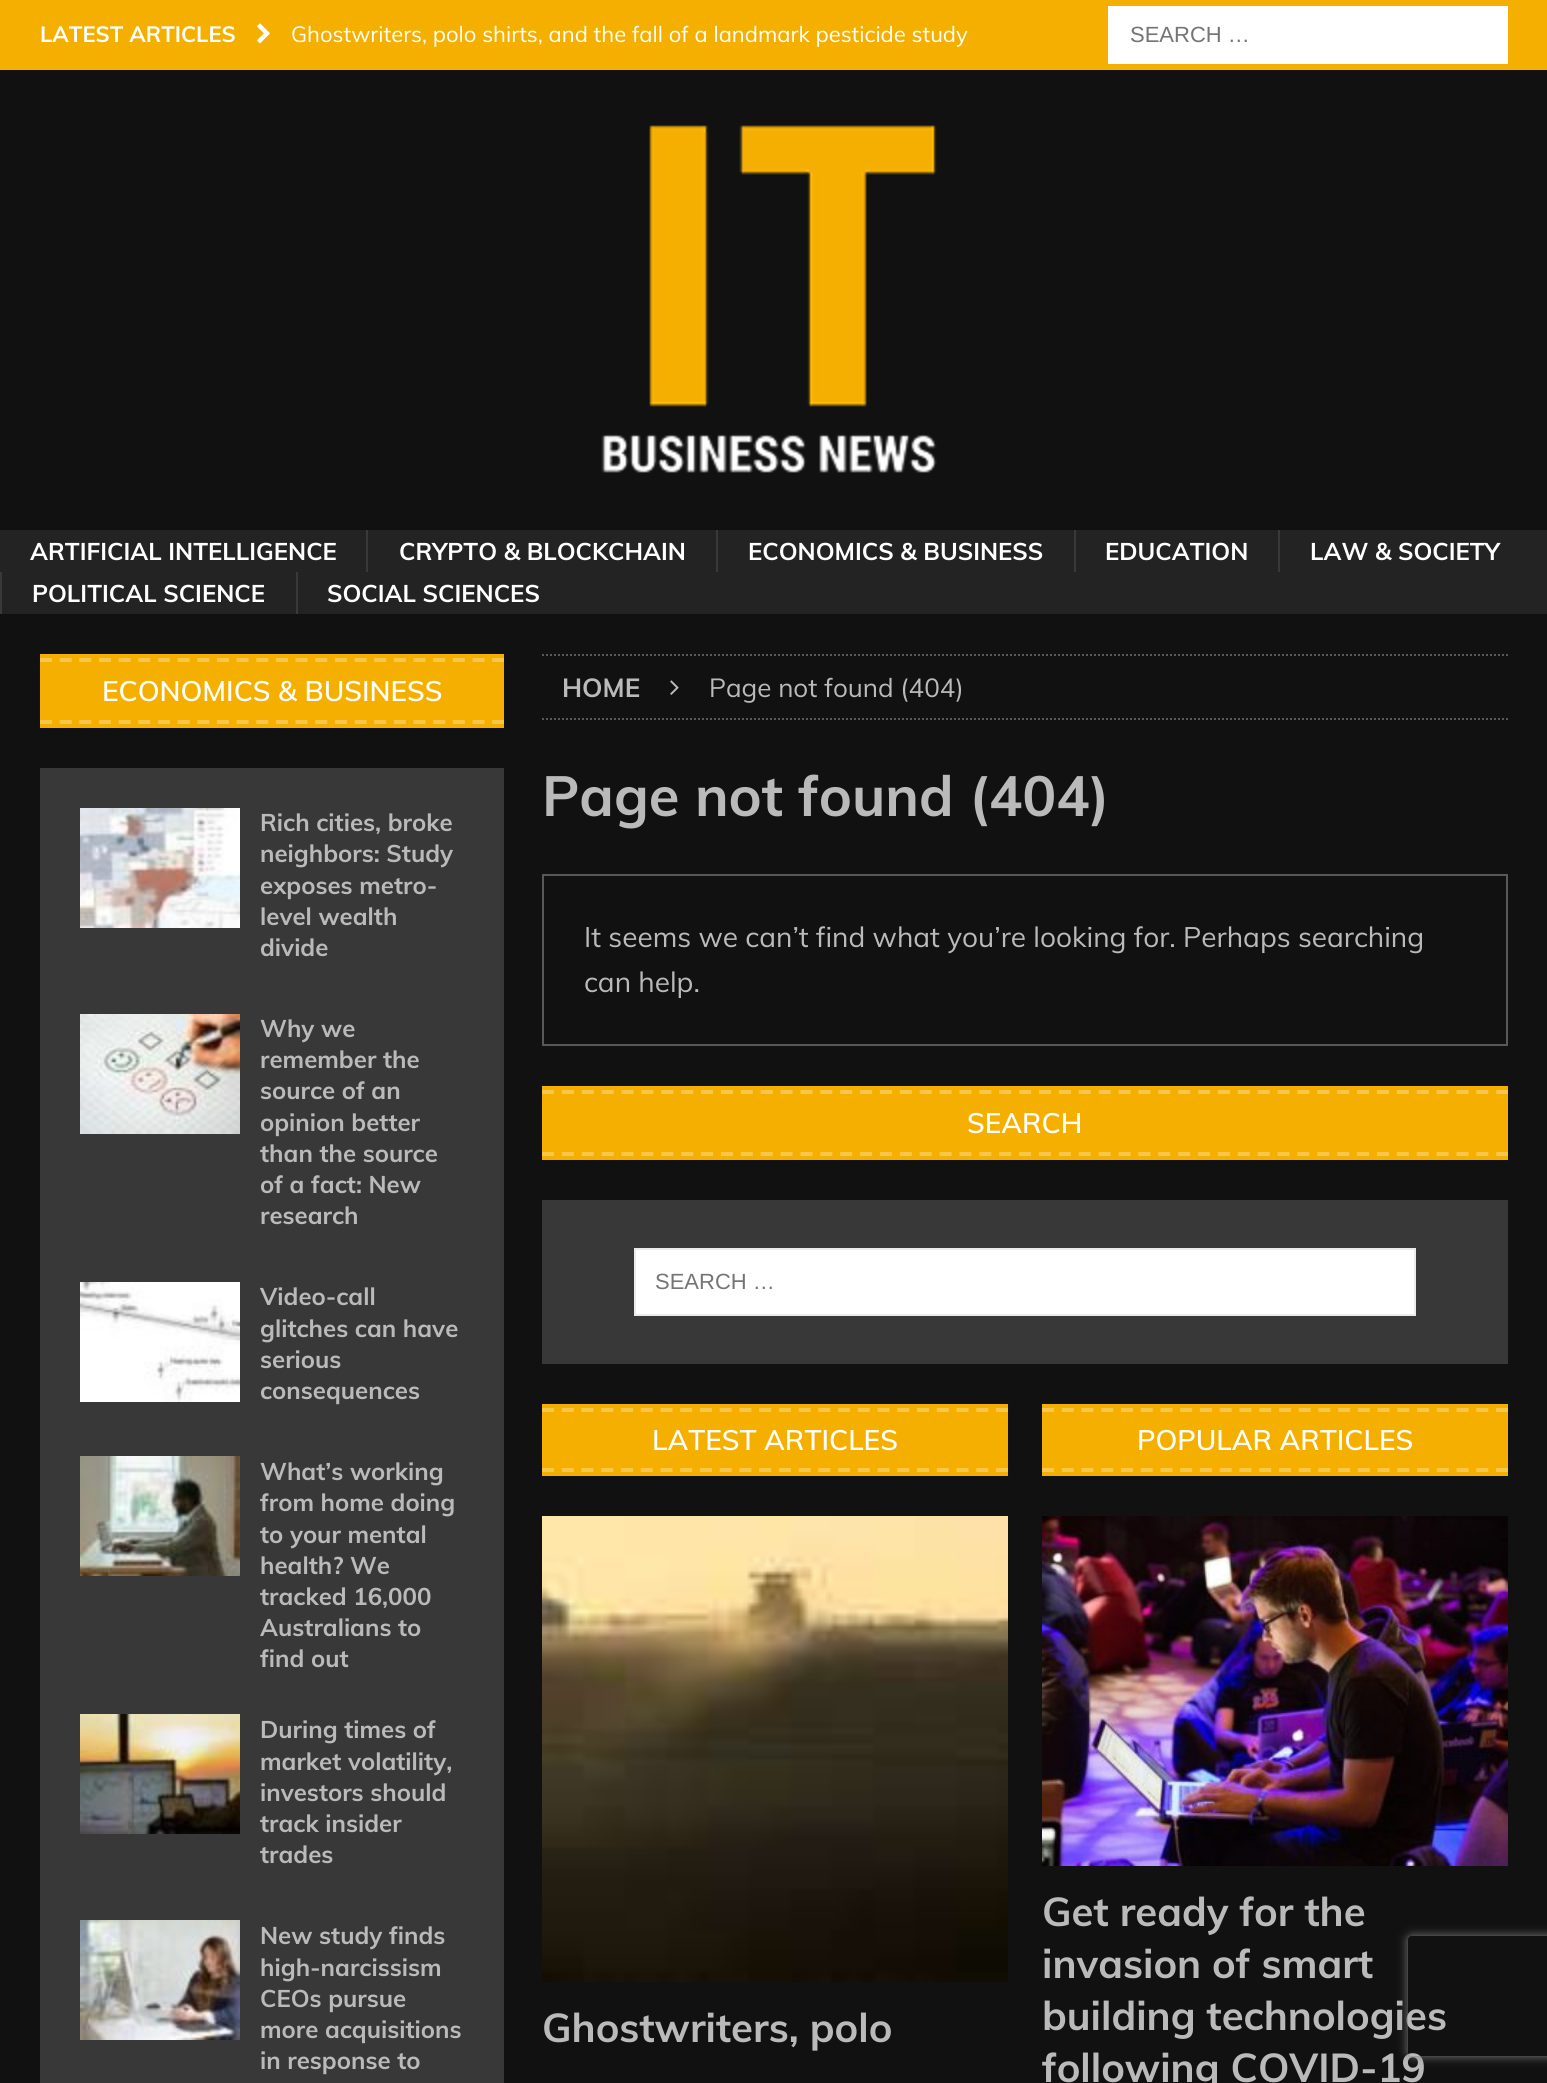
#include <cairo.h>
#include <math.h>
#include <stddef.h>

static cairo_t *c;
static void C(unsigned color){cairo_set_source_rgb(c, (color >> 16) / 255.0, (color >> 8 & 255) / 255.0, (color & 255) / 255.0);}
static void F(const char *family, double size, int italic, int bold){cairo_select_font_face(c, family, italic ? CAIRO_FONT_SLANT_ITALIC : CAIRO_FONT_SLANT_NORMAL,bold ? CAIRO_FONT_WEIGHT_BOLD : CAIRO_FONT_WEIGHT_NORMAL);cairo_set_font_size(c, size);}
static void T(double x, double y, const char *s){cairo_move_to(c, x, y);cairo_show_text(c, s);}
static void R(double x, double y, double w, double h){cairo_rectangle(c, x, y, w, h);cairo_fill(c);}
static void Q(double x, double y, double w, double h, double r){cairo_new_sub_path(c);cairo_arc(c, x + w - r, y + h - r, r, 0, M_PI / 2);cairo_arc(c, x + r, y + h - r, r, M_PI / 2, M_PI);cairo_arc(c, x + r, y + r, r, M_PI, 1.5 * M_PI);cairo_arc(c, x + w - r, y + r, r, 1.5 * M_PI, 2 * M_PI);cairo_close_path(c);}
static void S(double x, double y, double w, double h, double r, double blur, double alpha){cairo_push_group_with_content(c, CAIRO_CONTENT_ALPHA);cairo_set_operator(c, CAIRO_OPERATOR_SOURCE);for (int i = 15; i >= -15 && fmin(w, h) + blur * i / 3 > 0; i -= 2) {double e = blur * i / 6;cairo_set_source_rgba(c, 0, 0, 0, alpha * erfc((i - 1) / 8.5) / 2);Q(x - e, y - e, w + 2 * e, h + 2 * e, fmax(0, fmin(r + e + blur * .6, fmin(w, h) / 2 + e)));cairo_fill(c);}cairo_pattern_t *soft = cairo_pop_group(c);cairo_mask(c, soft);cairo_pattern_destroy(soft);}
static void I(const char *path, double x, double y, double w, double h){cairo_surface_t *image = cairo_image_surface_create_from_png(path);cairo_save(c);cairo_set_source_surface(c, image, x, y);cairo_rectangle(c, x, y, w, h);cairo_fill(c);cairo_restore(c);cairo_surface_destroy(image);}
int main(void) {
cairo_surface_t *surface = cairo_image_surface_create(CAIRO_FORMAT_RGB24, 1547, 2083);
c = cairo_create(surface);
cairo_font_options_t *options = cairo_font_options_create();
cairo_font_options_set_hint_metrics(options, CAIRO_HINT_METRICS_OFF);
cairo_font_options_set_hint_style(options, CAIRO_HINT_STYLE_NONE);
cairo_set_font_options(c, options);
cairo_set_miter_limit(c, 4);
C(0x111111);
cairo_paint(c);
C(0xf4af00);
R(0,0,1547,70);
F("Muli",22,0,1);
C(0xffffff);
T(40,42,"LATEST ARTICLES");
I("1.png",257,23,13,21);
F("Muli",22,0,0);
T(291,42,"Ghostwriters, polo shirts, and the fall of a landmark pesticide study");
R(1108,6,400,58);
F("Liberation Sans",22,0,0);
C(0x757575);
T(1130,42,"SEARCH …");
I("2.png",601,125,336,348);
C(0x232323);
R(0,530,1547,84);
F("Muli",24,0,1);
C(0xffffff);
T(30,560,"ARTIFICIAL INTELLIGENCE");
C(0x393939);
R(366,530,2,42);
C(0xffffff);
T(399,560,"CRYPTO & BLOCKCHAIN");
C(0x393939);
R(716,530,2,42);
C(0xffffff);
T(748,560,"ECONOMICS & BUSINESS");
C(0x393939);
R(1074,530,2,42);
C(0xffffff);
T(1105,560,"EDUCATION");
C(0x393939);
R(1278,530,2,42);
C(0xffffff);
T(1310,560,"LAW & SOCIETY");
C(0x393939);
R(0,572,2,42);
C(0xffffff);
T(32,602,"POLITICAL SCIENCE");
C(0x393939);
R(296,572,2,42);
C(0xffffff);
T(327,602,"SOCIAL SCIENCES");
C(0xf4af00);
R(40,654,464,74);
cairo_new_path(c);
cairo_move_to(c,40,660);
cairo_line_to(c,504,660);
C(0xf7c74d);
cairo_set_line_width(c,4);
cairo_set_dash(c,(double[]){12,7.66},2,0);
cairo_stroke(c);
cairo_new_path(c);
cairo_move_to(c,40,722);
cairo_line_to(c,504,722);
cairo_stroke(c);
F("Muli SemiBold",28,0,0);
C(0xffffff);
T(102,701,"ECONOMICS & BUSINESS");
C(0x383838);
R(40,768,464,1315);
I("3.png",80,808,160,120);
F("Muli",24,0,1);
C(0xbababa);
T(260,831,"Rich cities, broke");
T(260,862,"neighbors: Study");
T(260,894,"exposes metro-");
T(260,925,"level wealth");
T(260,956,"divide");
I("4.png",80,1014,160,120);
T(260,1037,"Why we");
T(260,1068,"remember the");
T(260,1099,"source of an");
T(260,1131,"opinion better");
T(260,1162,"than the source");
T(260,1193,"of a fact: New");
T(260,1224,"research");
I("5.png",80,1282,160,120);
T(260,1305,"Video-call");
T(260,1337,"glitches can have");
T(260,1368,"serious");
T(260,1399,"consequences");
I("6.png",80,1456,160,120);
T(260,1480,"What’s working");
T(260,1511,"from home doing");
T(260,1543,"to your mental");
T(260,1574,"health? We");
T(260,1605,"tracked 16,000");
T(260,1636,"Australians to");
T(260,1667,"find out");
I("7.png",80,1714,160,120);
T(260,1738,"During times of");
T(260,1770,"market volatility,");
T(260,1801,"investors should");
T(260,1832,"track insider");
T(260,1863,"trades");
I("8.png",80,1920,160,120);
T(260,1944,"New study finds");
T(260,1976,"high-narcissism");
T(260,2007,"CEOs pursue");
T(260,2038,"more acquisitions");
T(260,2069,"in response to");
cairo_new_path(c);
cairo_move_to(c,542,655);
cairo_line_to(c,1508,655);
C(0x585858);
cairo_set_line_width(c,2);
cairo_set_dash(c,(double[]){2,2},2,0);
cairo_stroke(c);
cairo_new_path(c);
cairo_move_to(c,542,719);
cairo_line_to(c,1508,719);
cairo_stroke(c);
F("Muli",26,0,1);
C(0xbababa);
T(562,697,"HOME");
I("9.png",670,680,9,15);
F("Muli",26,0,0);
T(709,697,"Page not found (404)");
F("Muli",56,0,1);
T(542,816,"Page not found (404)");
cairo_rectangle(c,543,875,964,170);
C(0x585858);
cairo_set_dash(c,NULL,0,0);
cairo_stroke(c);
F("Muli",28,0,0);
C(0xbababa);
T(584,947,"It seems we can’t find what you’re looking for. Perhaps searching");
T(584,992,"can help.");
C(0xf4af00);
R(542,1086,966,74);
cairo_new_path(c);
cairo_move_to(c,542,1092);
cairo_line_to(c,1508,1092);
C(0xf7c74d);
cairo_set_line_width(c,4);
cairo_set_dash(c,(double[]){12,7.88},2,0);
cairo_stroke(c);
cairo_new_path(c);
cairo_move_to(c,542,1154);
cairo_line_to(c,1508,1154);
cairo_stroke(c);
F("Muli SemiBold",28,0,0);
C(0xffffff);
T(967,1133,"SEARCH");
C(0x383838);
R(542,1200,966,164);
C(0xffffff);
cairo_rectangle(c,635,1249,780,66);
cairo_fill_preserve(c);
C(0xebebeb);
cairo_set_line_width(c,2);
cairo_set_dash(c,NULL,0,0);
cairo_stroke(c);
F("Liberation Sans",22,0,0);
C(0x757575);
T(655,1289,"SEARCH …");
C(0xf4af00);
R(542,1404,466,72);
cairo_new_path(c);
cairo_move_to(c,542,1410);
cairo_line_to(c,1008,1410);
C(0xf7c74d);
cairo_set_line_width(c,4);
cairo_set_dash(c,(double[]){12,7.74},2,0);
cairo_stroke(c);
cairo_new_path(c);
cairo_move_to(c,542,1470);
cairo_line_to(c,1008,1470);
cairo_stroke(c);
F("Muli SemiBold",28,0,0);
C(0xffffff);
T(652,1450,"LATEST ARTICLES");
I("10.png",542,1516,466,466);
F("Muli",40,0,1);
C(0xbababa);
T(542,2042,"Ghostwriters, polo");
C(0xf4af00);
R(1042,1404,466,72);
cairo_new_path(c);
cairo_move_to(c,1042,1410);
cairo_line_to(c,1508,1410);
C(0xf7c74d);
cairo_stroke(c);
cairo_new_path(c);
cairo_move_to(c,1042,1470);
cairo_line_to(c,1508,1470);
cairo_stroke(c);
F("Muli SemiBold",28,0,0);
C(0xffffff);
T(1137,1450,"POPULAR ARTICLES");
I("11.png",1042,1516,466,350);
F("Muli",40,0,1);
C(0xbababa);
T(1042,1926,"Get ready for the");
T(1042,1978,"invasion of smart");
T(1042,2030,"building technologies");
T(1042,2082,"following COVID-19");
cairo_save(c);
cairo_set_fill_rule(c,CAIRO_FILL_RULE_EVEN_ODD);
cairo_new_path(c);
cairo_move_to(c,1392,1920);
cairo_line_to(c,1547,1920);
cairo_line_to(c,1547,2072);
cairo_line_to(c,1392,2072);
cairo_close_path(c);
cairo_move_to(c,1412,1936);
cairo_line_to(c,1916,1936);
cairo_curve_to(c,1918,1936,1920,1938,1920,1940);
cairo_line_to(c,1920,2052);
cairo_curve_to(c,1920,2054,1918,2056,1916,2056);
cairo_line_to(c,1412,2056);
cairo_curve_to(c,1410,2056,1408,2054,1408,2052);
cairo_line_to(c,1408,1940);
cairo_curve_to(c,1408,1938,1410,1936,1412,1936);
cairo_close_path(c);
cairo_clip(c);
C(0x808080);
S(1408,1936,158,120,4,5,1);
cairo_restore(c);
cairo_surface_write_to_png(surface, "o.png");
cairo_font_options_destroy(options);
cairo_destroy(c);
cairo_surface_destroy(surface);
return 0;
}
